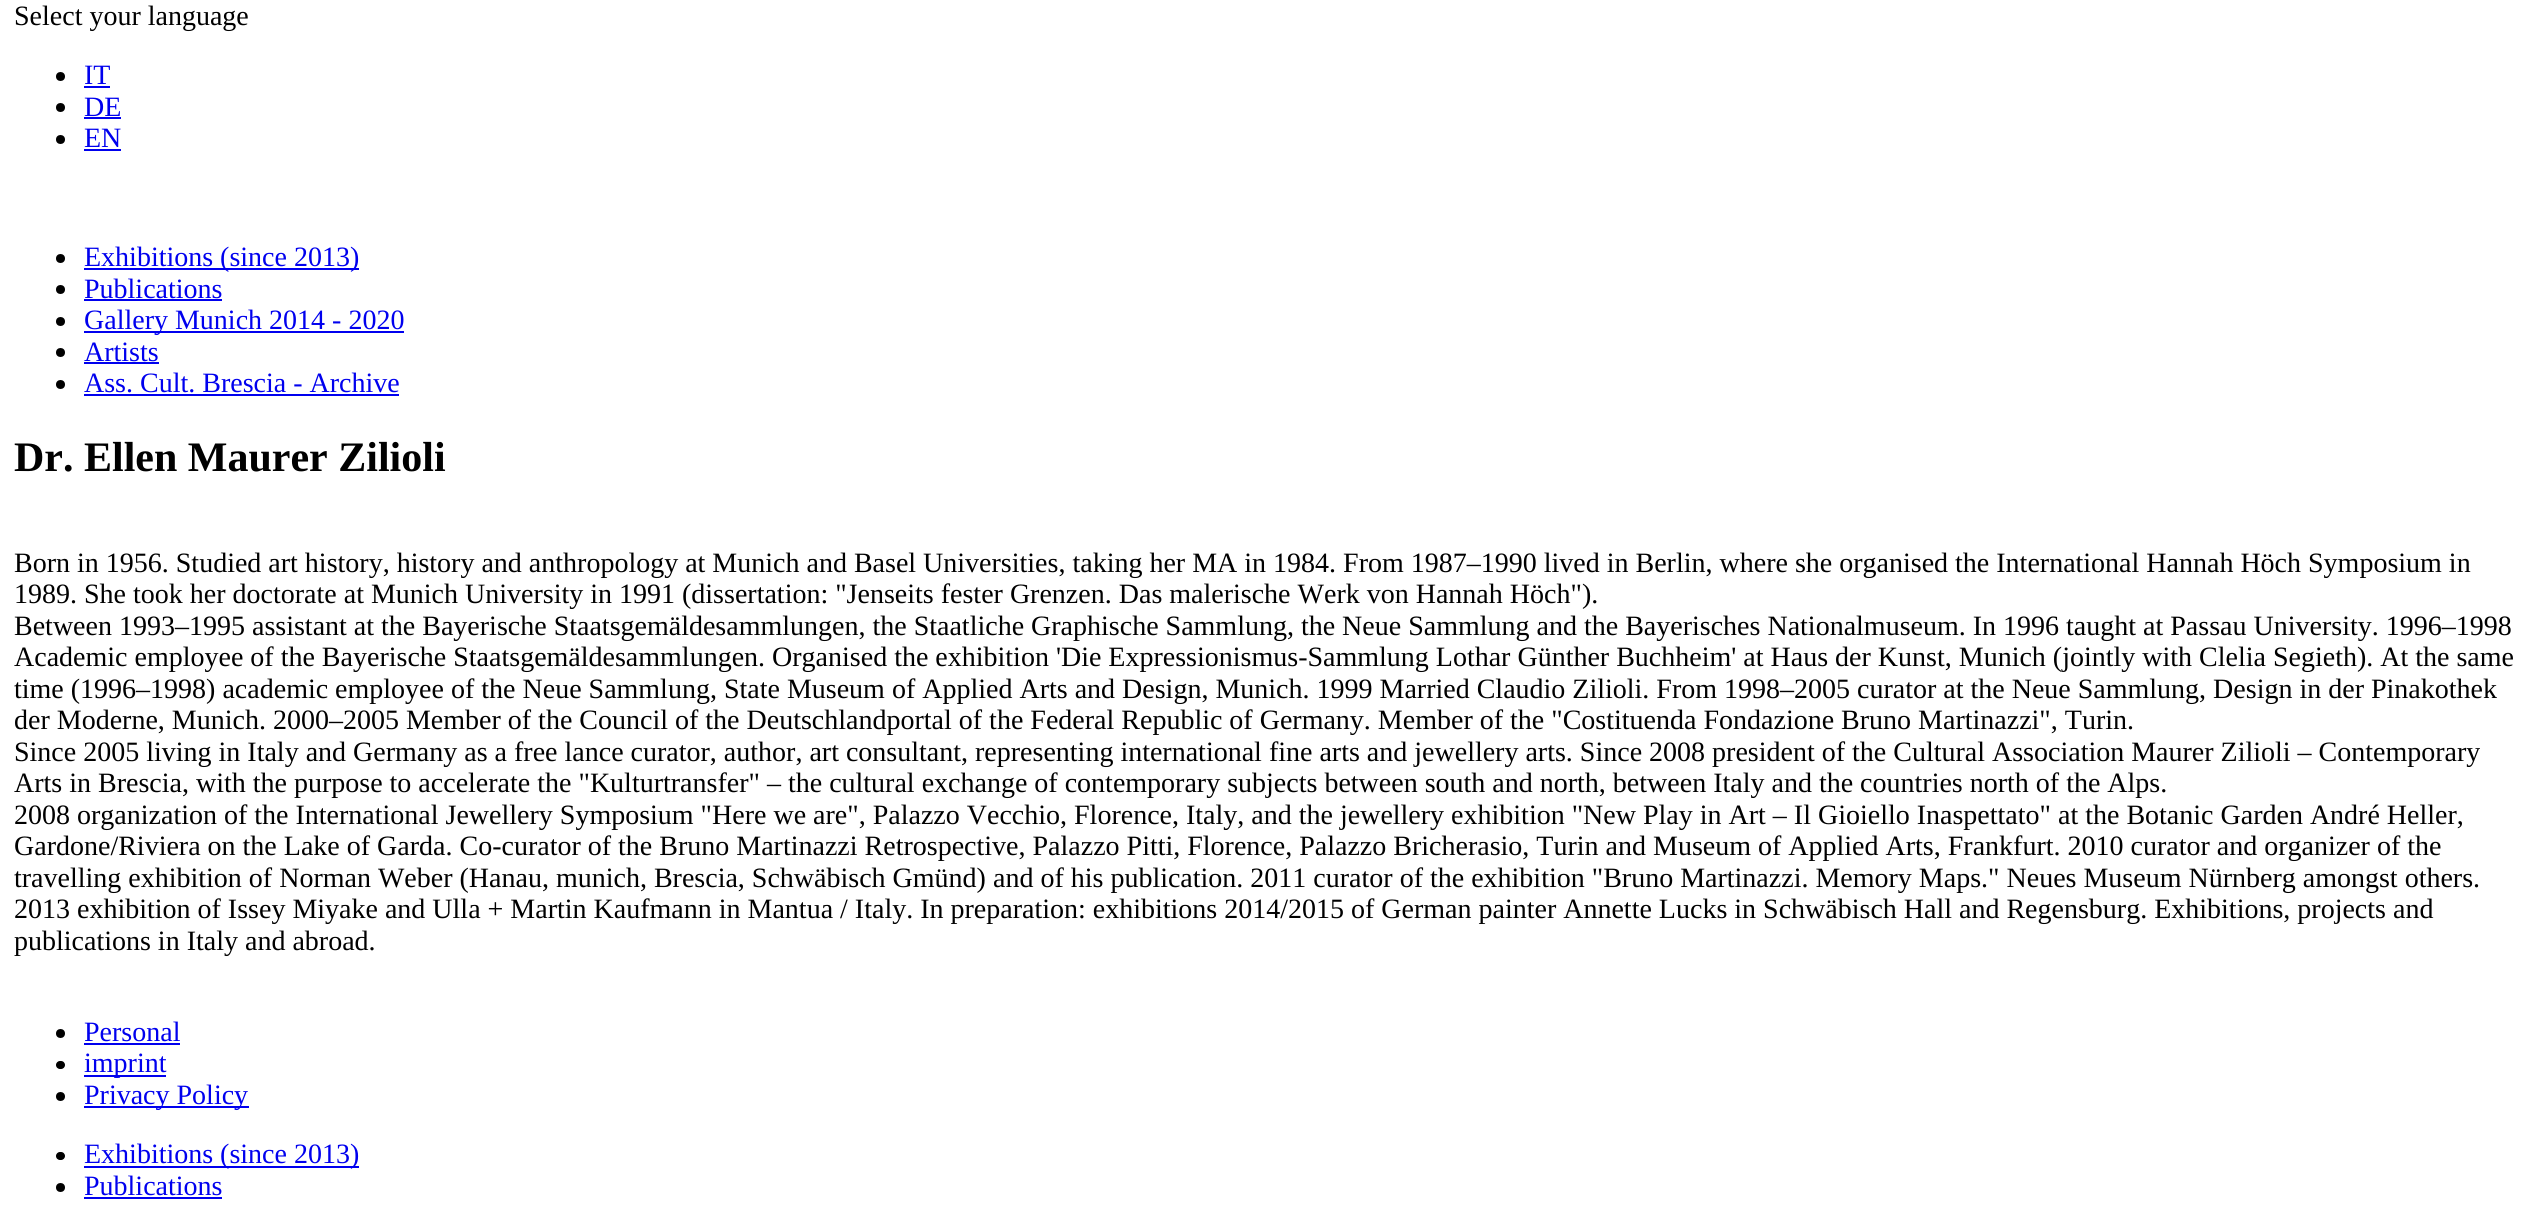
#include <cairo.h>
#include <math.h>
#include <stddef.h>

static cairo_t *c;
static void C(unsigned color){cairo_set_source_rgb(c, (color >> 16) / 255.0, (color >> 8 & 255) / 255.0, (color & 255) / 255.0);}
static void F(const char *family, double size, int italic, int bold){cairo_select_font_face(c, family, italic ? CAIRO_FONT_SLANT_ITALIC : CAIRO_FONT_SLANT_NORMAL,bold ? CAIRO_FONT_WEIGHT_BOLD : CAIRO_FONT_WEIGHT_NORMAL);cairo_set_font_size(c, size);}
static void T(double x, double y, const char *s){cairo_move_to(c, x, y);cairo_show_text(c, s);}
static void R(double x, double y, double w, double h){cairo_rectangle(c, x, y, w, h);cairo_fill(c);}
static void Q(double x, double y, double w, double h, double r){cairo_new_sub_path(c);cairo_arc(c, x + w - r, y + h - r, r, 0, M_PI / 2);cairo_arc(c, x + r, y + h - r, r, M_PI / 2, M_PI);cairo_arc(c, x + r, y + r, r, M_PI, 1.5 * M_PI);cairo_arc(c, x + w - r, y + r, r, 1.5 * M_PI, 2 * M_PI);cairo_close_path(c);}
int main(void) {
cairo_surface_t *surface = cairo_image_surface_create(CAIRO_FORMAT_RGB24, 2536, 1209);
c = cairo_create(surface);
cairo_font_options_t *options = cairo_font_options_create();
cairo_font_options_set_hint_metrics(options, CAIRO_HINT_METRICS_OFF);
cairo_font_options_set_hint_style(options, CAIRO_HINT_STYLE_NONE);
cairo_set_font_options(c, options);
cairo_set_miter_limit(c, 4);
C(0xffffff);
cairo_paint(c);
F("Liberation Serif",28,0,0);
C(0x000000);
T(14,25,"Select your language");
cairo_new_path(c);
cairo_arc(c,60.5,76.5,4.5,0,2 * M_PI);
cairo_fill(c);
C(0x0000ee);
T(84,84,"IT");
R(84,86,26,2);
C(0x000000);
cairo_new_path(c);
cairo_arc(c,60.5,107.5,4.5,0,2 * M_PI);
cairo_fill(c);
C(0x0000ee);
T(84,116,"DE");
R(84,117,37,2);
C(0x000000);
cairo_new_path(c);
cairo_arc(c,60.5,139.5,4.5,0,2 * M_PI);
cairo_fill(c);
C(0x0000ee);
T(84,147,"EN");
R(84,149,37,2);
C(0x000000);
cairo_new_path(c);
cairo_arc(c,60.5,258.5,4.5,0,2 * M_PI);
cairo_fill(c);
C(0x0000ee);
R(84,268,275,2);
T(84,266,"Exhibitions (since 2013)");
C(0x000000);
cairo_new_path(c);
cairo_arc(c,60.5,289.5,4.5,0,2 * M_PI);
cairo_fill(c);
C(0x0000ee);
T(84,298,"Publications");
R(84,299,138,2);
C(0x000000);
cairo_new_path(c);
cairo_arc(c,60.5,321.5,4.5,0,2 * M_PI);
cairo_fill(c);
C(0x0000ee);
R(84,331,320,2);
T(84,329,"Gallery Munich 2014 - 2020");
C(0x000000);
cairo_new_path(c);
cairo_arc(c,60.5,352.5,4.5,0,2 * M_PI);
cairo_fill(c);
C(0x0000ee);
T(84,361,"Artists");
R(84,362,75,2);
C(0x000000);
cairo_new_path(c);
cairo_arc(c,60.5,384.5,4.5,0,2 * M_PI);
cairo_fill(c);
C(0x0000ee);
T(84,392,"Ass. Cult. Brescia - Archive");
R(84,394,315,2);
F("Liberation Serif",42,0,1);
C(0x000000);
T(14,471,"Dr. Ellen Maurer Zilioli");
F("Liberation Serif",28,0,0);
T(14,572,"Born in 1956. Studied art history, history and anthropology at Munich and Basel Universities, taking her MA in 1984. From 1987–1990 lived in Berlin, where she organised the International Hannah Höch Symposium in");
T(14,603,"1989. She took her doctorate at Munich University in 1991 (dissertation: \"Jenseits fester Grenzen. Das malerische Werk von Hannah Höch\").");
T(14,635,"Between 1993–1995 assistant at the Bayerische Staatsgemäldesammlungen, the Staatliche Graphische Sammlung, the Neue Sammlung and the Bayerisches Nationalmuseum. In 1996 taught at Passau University. 1996–1998");
T(14,666,"Academic employee of the Bayerische Staatsgemäldesammlungen. Organised the exhibition 'Die Expressionismus-Sammlung Lothar Günther Buchheim' at Haus der Kunst, Munich (jointly with Clelia Segieth). At the same");
T(14,698,"time (1996–1998) academic employee of the Neue Sammlung, State Museum of Applied Arts and Design, Munich. 1999 Married Claudio Zilioli. From 1998–2005 curator at the Neue Sammlung, Design in der Pinakothek");
T(14,729,"der Moderne, Munich. 2000–2005 Member of the Council of the Deutschlandportal of the Federal Republic of Germany. Member of the \"Costituenda Fondazione Bruno Martinazzi\", Turin.");
T(14,761,"Since 2005 living in Italy and Germany as a free lance curator, author, art consultant, representing international fine arts and jewellery arts. Since 2008 president of the Cultural Association Maurer Zilioli – Contemporary");
T(14,792,"Arts in Brescia, with the purpose to accelerate the \"Kulturtransfer\" – the cultural exchange of contemporary subjects between south and north, between Italy and the countries north of the Alps.");
T(14,824,"2008 organization of the International Jewellery Symposium \"Here we are\", Palazzo Vecchio, Florence, Italy, and the jewellery exhibition \"New Play in Art – Il Gioiello Inaspettato\" at the Botanic Garden André Heller,");
T(14,855,"Gardone/Riviera on the Lake of Garda. Co-curator of the Bruno Martinazzi Retrospective, Palazzo Pitti, Florence, Palazzo Bricherasio, Turin and Museum of Applied Arts, Frankfurt. 2010 curator and organizer of the");
T(14,887,"travelling exhibition of Norman Weber (Hanau, munich, Brescia, Schwäbisch Gmünd) and of his publication. 2011 curator of the exhibition \"Bruno Martinazzi. Memory Maps.\" Neues Museum Nürnberg amongst others.");
T(14,918,"2013 exhibition of Issey Miyake and Ulla + Martin Kaufmann in Mantua / Italy. In preparation: exhibitions 2014/2015 of German painter Annette Lucks in Schwäbisch Hall and Regensburg. Exhibitions, projects and");
T(14,950,"publications in Italy and abroad.");
cairo_new_path(c);
cairo_arc(c,60.5,1033.5,4.5,0,2 * M_PI);
cairo_fill(c);
C(0x0000ee);
T(84,1041,"Personal");
R(84,1043,96,2);
C(0x000000);
Q(56,1061,9,8,4);
cairo_fill(c);
C(0x0000ee);
R(84,1075,82,2);
T(84,1072,"imprint");
C(0x000000);
cairo_new_path(c);
cairo_arc(c,60.5,1096.5,4.5,0,2 * M_PI);
cairo_fill(c);
C(0x0000ee);
R(84,1106,165,2);
T(84,1104,"Privacy Policy");
C(0x000000);
Q(56,1152,9,8,4);
cairo_fill(c);
C(0x0000ee);
R(84,1166,275,2);
T(84,1163,"Exhibitions (since 2013)");
C(0x000000);
cairo_new_path(c);
cairo_arc(c,60.5,1187.5,4.5,0,2 * M_PI);
cairo_fill(c);
C(0x0000ee);
T(84,1195,"Publications");
R(84,1197,138,2);
cairo_surface_write_to_png(surface, "o.png");
cairo_font_options_destroy(options);
cairo_destroy(c);
cairo_surface_destroy(surface);
return 0;
}
